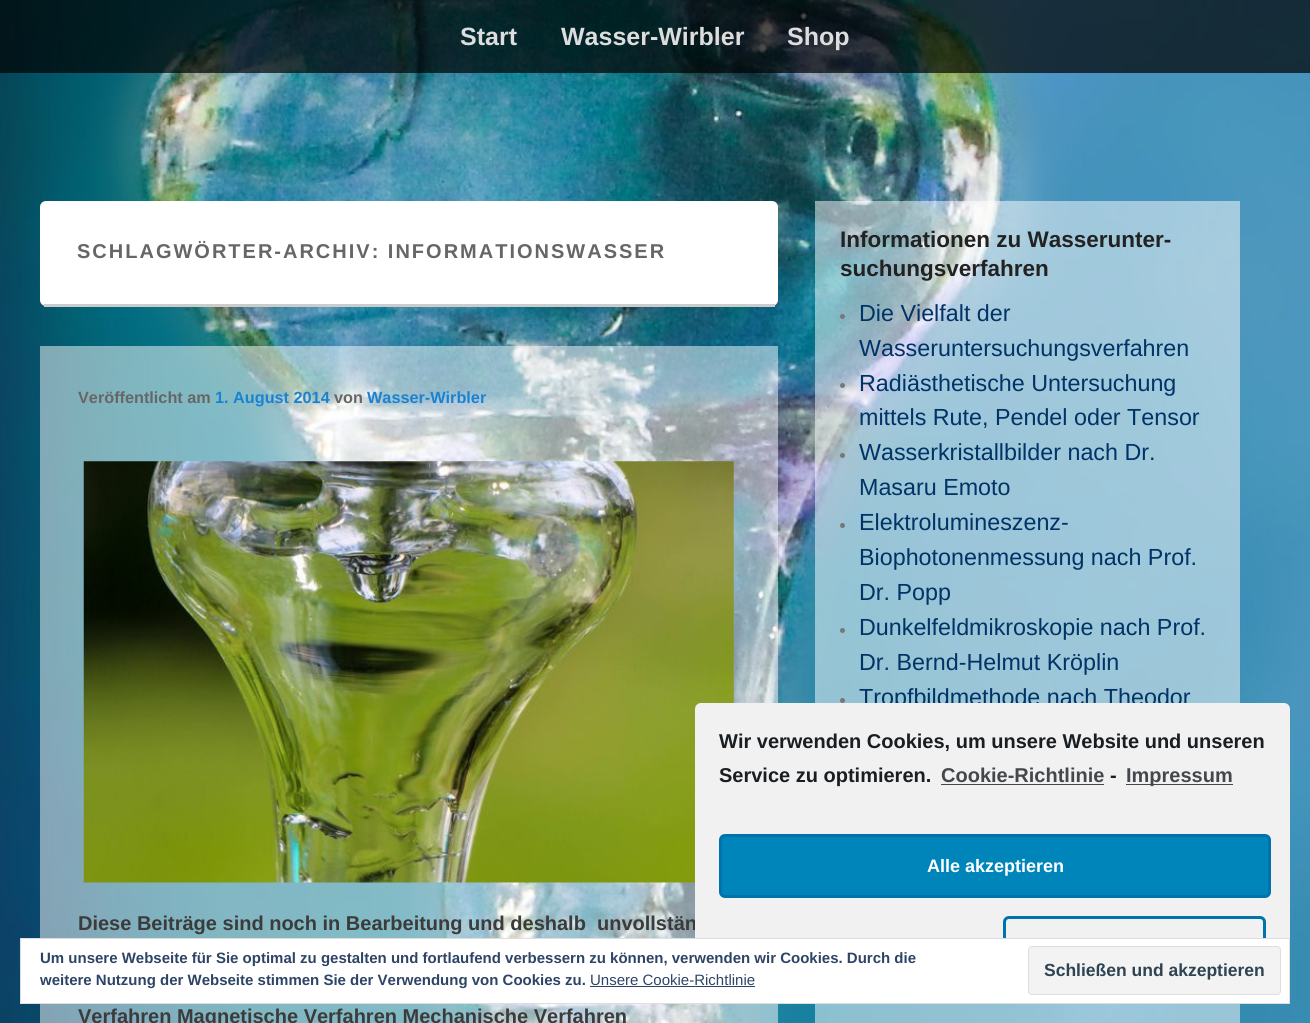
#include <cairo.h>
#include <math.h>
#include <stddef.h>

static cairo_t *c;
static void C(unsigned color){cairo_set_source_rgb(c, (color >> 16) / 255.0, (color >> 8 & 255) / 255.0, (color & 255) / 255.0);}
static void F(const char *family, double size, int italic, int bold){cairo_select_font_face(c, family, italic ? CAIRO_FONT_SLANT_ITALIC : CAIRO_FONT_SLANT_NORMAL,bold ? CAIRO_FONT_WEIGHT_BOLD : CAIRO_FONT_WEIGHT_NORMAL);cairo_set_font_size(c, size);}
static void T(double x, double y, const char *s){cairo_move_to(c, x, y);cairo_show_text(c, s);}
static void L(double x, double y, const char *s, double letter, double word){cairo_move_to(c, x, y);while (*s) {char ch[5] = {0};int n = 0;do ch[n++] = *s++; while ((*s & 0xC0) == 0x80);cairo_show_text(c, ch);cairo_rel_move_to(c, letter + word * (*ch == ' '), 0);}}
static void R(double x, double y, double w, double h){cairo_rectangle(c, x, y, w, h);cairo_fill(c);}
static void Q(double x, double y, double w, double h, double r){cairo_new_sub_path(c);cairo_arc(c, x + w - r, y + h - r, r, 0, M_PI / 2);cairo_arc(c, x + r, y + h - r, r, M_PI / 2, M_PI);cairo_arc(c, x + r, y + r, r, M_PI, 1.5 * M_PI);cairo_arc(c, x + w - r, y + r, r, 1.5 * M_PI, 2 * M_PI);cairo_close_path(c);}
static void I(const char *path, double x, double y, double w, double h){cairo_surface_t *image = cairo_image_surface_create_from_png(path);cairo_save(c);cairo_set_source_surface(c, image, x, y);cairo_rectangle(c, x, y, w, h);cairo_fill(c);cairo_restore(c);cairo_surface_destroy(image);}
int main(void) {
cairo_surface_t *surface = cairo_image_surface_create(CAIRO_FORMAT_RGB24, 1310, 1023);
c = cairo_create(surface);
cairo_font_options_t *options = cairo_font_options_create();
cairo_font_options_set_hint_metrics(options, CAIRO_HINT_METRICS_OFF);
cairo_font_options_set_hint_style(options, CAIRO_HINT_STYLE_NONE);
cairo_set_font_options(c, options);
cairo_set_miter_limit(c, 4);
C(0xffffff);
cairo_paint(c);
I("1.png",0,0,1310,1023);
cairo_set_source_rgba(c,0,0,0,0.7);
R(0,0,1310,73);
F("Liberation Sans",25,0,1);
C(0xdddddd);
T(460,45,"Start");
T(561,45,"Wasser-Wirbler");
T(787,45,"Shop");
C(0xffffff);
Q(40,201,738,105,6);
cairo_fill(c);
C(0xcccccc);
R(44,304,731,3);
F("Liberation Sans",20,0,1);
C(0x666666);
L(77,258,"SCHLAGWÖRTER-ARCHIV: INFORMATIONSWASSER",2,0);
cairo_set_source_rgba(c,1,1,1,0.5);
R(40,346,738,677);
F("Liberation Sans",16.25,0,1);
C(0x666666);
T(78,403,"Veröffentlicht am");
C(0x1982d1);
T(215,403,"1. August 2014");
C(0x666666);
T(334,403,"von");
C(0x1982d1);
T(367,403,"Wasser-Wirbler");
I("2.png",83,461,651,422);
F("Liberation Sans",20,0,1);
C(0x3b3b3b);
T(78,930,"Diese Beiträge sind noch in Bearbeitung und deshalb  unvollstän");
T(78,1023,"Verfahren Magnetische Verfahren Mechanische Verfahren");
cairo_set_source_rgba(c,1,1,1,0.5);
R(815,201,425,502);
F("Liberation Sans",22.5,0,1);
C(0x222222);
T(840,247,"Informationen zu Wasserunter-");
T(840,276,"suchungsverfahren");
C(0x777777);
cairo_new_path(c);
cairo_arc(c,842.5,316.5,2.5,0,2 * M_PI);
cairo_fill(c);
F("Liberation Sans",23.3,0,0);
C(0x003366);
T(859,321,"Die Vielfalt der");
T(859,356,"Wasseruntersuchungsverfahren");
C(0x777777);
cairo_new_path(c);
cairo_arc(c,842.5,385.5,2.5,0,2 * M_PI);
cairo_fill(c);
C(0x003366);
T(859,391,"Radiästhetische Untersuchung");
T(859,425,"mittels Rute, Pendel oder Tensor");
C(0x777777);
cairo_new_path(c);
cairo_arc(c,842.5,455.5,2.5,0,2 * M_PI);
cairo_fill(c);
C(0x003366);
T(859,460,"Wasserkristallbilder nach Dr.");
T(859,495,"Masaru Emoto");
C(0x777777);
cairo_new_path(c);
cairo_arc(c,842.5,525.5,2.5,0,2 * M_PI);
cairo_fill(c);
C(0x003366);
T(859,530,"Elektrolumineszenz-");
T(859,565,"Biophotonenmessung nach Prof.");
T(859,600,"Dr. Popp");
C(0x777777);
cairo_new_path(c);
cairo_arc(c,842.5,630.5,2.5,0,2 * M_PI);
cairo_fill(c);
C(0x003366);
T(859,635,"Dunkelfeldmikroskopie nach Prof.");
T(859,670,"Dr. Bernd-Helmut Kröplin");
C(0x777777);
cairo_new_path(c);
cairo_arc(c,842.5,700.5,2.5,0,2 * M_PI);
cairo_fill(c);
C(0x003366);
T(859,705,"Tropfbildmethode nach Theodor");
cairo_set_source_rgba(c,1,1,1,0.5);
R(815,1004,425,19);
C(0xf1f1f1);
Q(695,703,595,301,6);
cairo_fill(c);
F("Liberation Sans",20,0,1);
C(0x191e23);
T(719,748,"Wir verwenden Cookies, um unsere Website und unseren");
T(719,782,"Service zu optimieren.");
C(0x44484c);
T(941,782,"Cookie-Richtlinie");
R(941,784,163,1);
C(0x191e23);
T(1110,782,"-");
C(0x44484c);
R(1126,784,107,1);
T(1126,782,"Impressum");
C(0x0085ba);
Q(720.5,835.5,549,61,4.5);
cairo_fill_preserve(c);
C(0x0073aa);
cairo_set_line_width(c,3);
cairo_stroke(c);
F("Liberation Sans",18,0,1);
C(0xffffff);
T(927,872,"Alle akzeptieren");
Q(1004.5,917.5,260,61,4.5);
C(0x0073aa);
cairo_stroke(c);
C(0xffffff);
cairo_rectangle(c,20.5,938.5,1269,65);
cairo_fill_preserve(c);
C(0xdedede);
cairo_set_line_width(c,1);
cairo_stroke(c);
F("Liberation Sans",15,0,1);
C(0x2e4467);
T(40,963,"Um unsere Webseite für Sie optimal zu gestalten und fortlaufend verbessern zu können, verwenden wir Cookies. Durch die");
C(0xf3f3f3);
Q(1028.5,946.5,252,48,3.5);
cairo_fill_preserve(c);
C(0xdedede);
cairo_stroke(c);
F("Liberation Sans",17.5,0,1);
C(0x2e4453);
T(1044,976,"Schließen und akzeptieren");
F("Liberation Sans",15,0,1);
C(0x2e4467);
T(40,985,"weitere Nutzung der Webseite stimmen Sie der Verwendung von Cookies zu.");
F("Liberation Sans",15,0,0);
T(590,985,"Unsere Cookie-Richtlinie");
R(590,986,165,1);
cairo_surface_write_to_png(surface, "o.png");
cairo_font_options_destroy(options);
cairo_destroy(c);
cairo_surface_destroy(surface);
return 0;
}
